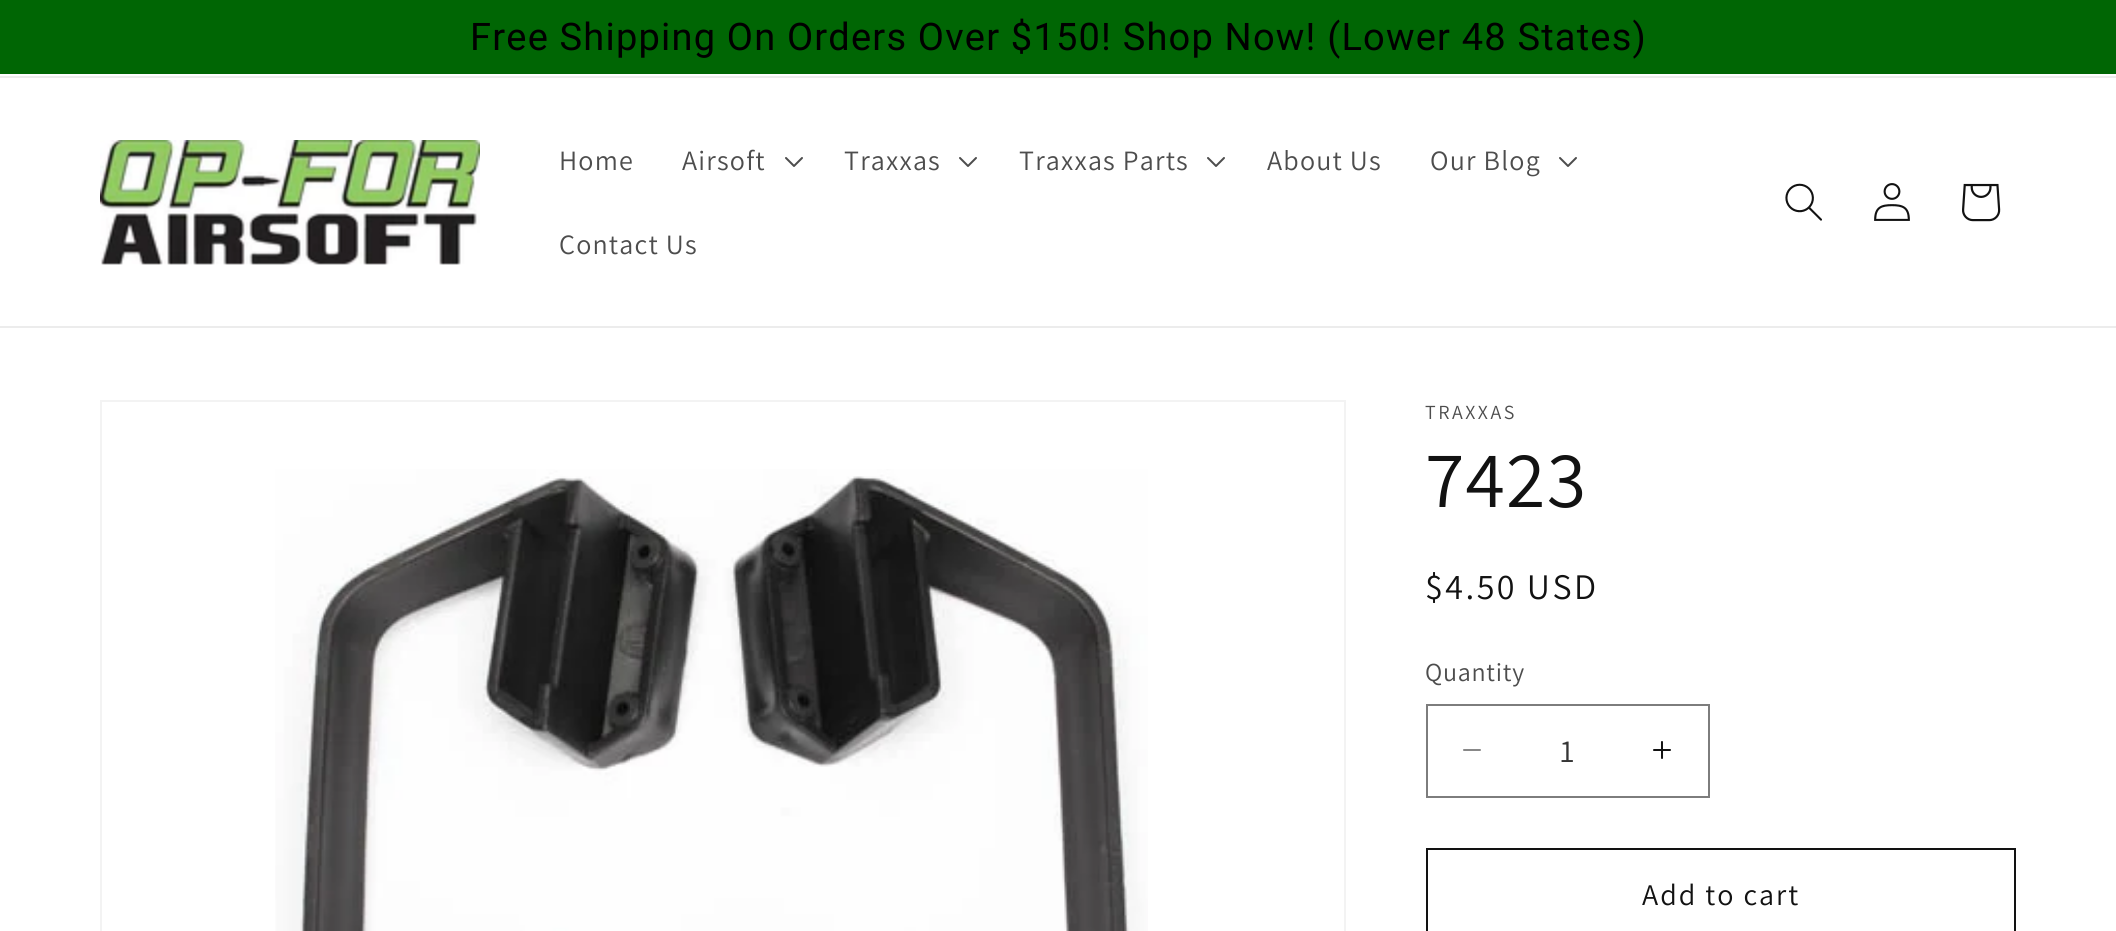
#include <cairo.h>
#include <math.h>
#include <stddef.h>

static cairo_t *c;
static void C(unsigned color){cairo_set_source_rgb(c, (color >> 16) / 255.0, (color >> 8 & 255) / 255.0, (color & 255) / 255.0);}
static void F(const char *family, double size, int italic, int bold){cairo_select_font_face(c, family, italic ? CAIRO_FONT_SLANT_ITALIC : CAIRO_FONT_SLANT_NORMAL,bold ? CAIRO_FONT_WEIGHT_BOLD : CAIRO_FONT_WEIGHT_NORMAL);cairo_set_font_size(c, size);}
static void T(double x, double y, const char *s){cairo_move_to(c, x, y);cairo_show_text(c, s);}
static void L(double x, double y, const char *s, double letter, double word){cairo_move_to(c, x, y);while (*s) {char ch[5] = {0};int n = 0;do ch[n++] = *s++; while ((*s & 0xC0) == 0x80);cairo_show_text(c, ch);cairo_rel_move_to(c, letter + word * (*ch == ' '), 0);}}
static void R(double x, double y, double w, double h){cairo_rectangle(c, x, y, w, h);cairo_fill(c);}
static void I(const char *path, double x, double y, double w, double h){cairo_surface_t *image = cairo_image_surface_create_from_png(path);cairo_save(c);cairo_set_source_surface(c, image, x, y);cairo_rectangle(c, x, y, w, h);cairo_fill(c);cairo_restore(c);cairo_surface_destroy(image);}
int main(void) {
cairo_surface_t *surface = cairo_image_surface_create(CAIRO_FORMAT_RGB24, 2116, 931);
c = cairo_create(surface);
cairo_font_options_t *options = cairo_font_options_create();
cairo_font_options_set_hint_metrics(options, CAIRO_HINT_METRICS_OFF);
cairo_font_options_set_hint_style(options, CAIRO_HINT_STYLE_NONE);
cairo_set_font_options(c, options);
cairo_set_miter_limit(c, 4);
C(0xffffff);
cairo_paint(c);
C(0x006604);
R(0,0,2116,74);
F("Roboto",38,0,0);
C(0x000000);
L(470,50,"Free Shipping On Orders Over $150! Shop Now! (Lower 48 States)",1.2,0);
C(0xececec);
R(0,76,2116,2);
R(0,326,2116,2);
I("1.png",100,140,380,125);
F("Assistant",28,0,0);
C(0x4d4d4d);
L(559,170,"Home",1.2,0);
L(682,170,"Airsoft",1.2,0);
I("2.png",785,157,18,10);
L(844,170,"Traxxas",1.2,0);
I("2.png",959,157,18,10);
L(1019,170,"Traxxas Parts",1.2,0);
I("2.png",1207,157,18,10);
L(1267,170,"About Us",1.2,0);
L(1430,170,"Our Blog",1.2,0);
I("2.png",1559,157,18,10);
L(559,254,"Contact Us",1.2,0);
I("3.png",1785,183,37,38);
I("4.png",1874,183,36,38);
I("5.png",1962,183,39,39);
cairo_rectangle(c,101,401,1244,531);
C(0xf3f3f3);
cairo_stroke(c);
I("6.png",275,469,873,462);
F("Assistant",20,0,0);
C(0x4d4d4d);
L(1425,419,"TRAXXAS",2.5,0);
F("Assistant",80,0,0);
C(0x121212);
L(1425,507,"7423",1.2,0);
F("Assistant",36,0,0);
L(1425,599,"$4.50 USD",2.5,0);
F("Assistant",26,0,0);
C(0x4d4d4d);
L(1425,681,"Quantity",.75,0);
I("7.png",1463,749,18,2);
I("8.png",1653,741,18,18);
cairo_rectangle(c,1427,705,282,92);
C(0x7d7d7d);
cairo_stroke(c);
F("Assistant",32,0,0);
C(0x363636);
T(1560,762,"1");
cairo_rectangle(c,1427,849,588,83);
C(0x121212);
cairo_stroke(c);
F("Assistant",30,0,0);
L(1642,905,"Add to cart",2,0);
cairo_surface_write_to_png(surface, "o.png");
cairo_font_options_destroy(options);
cairo_destroy(c);
cairo_surface_destroy(surface);
return 0;
}
